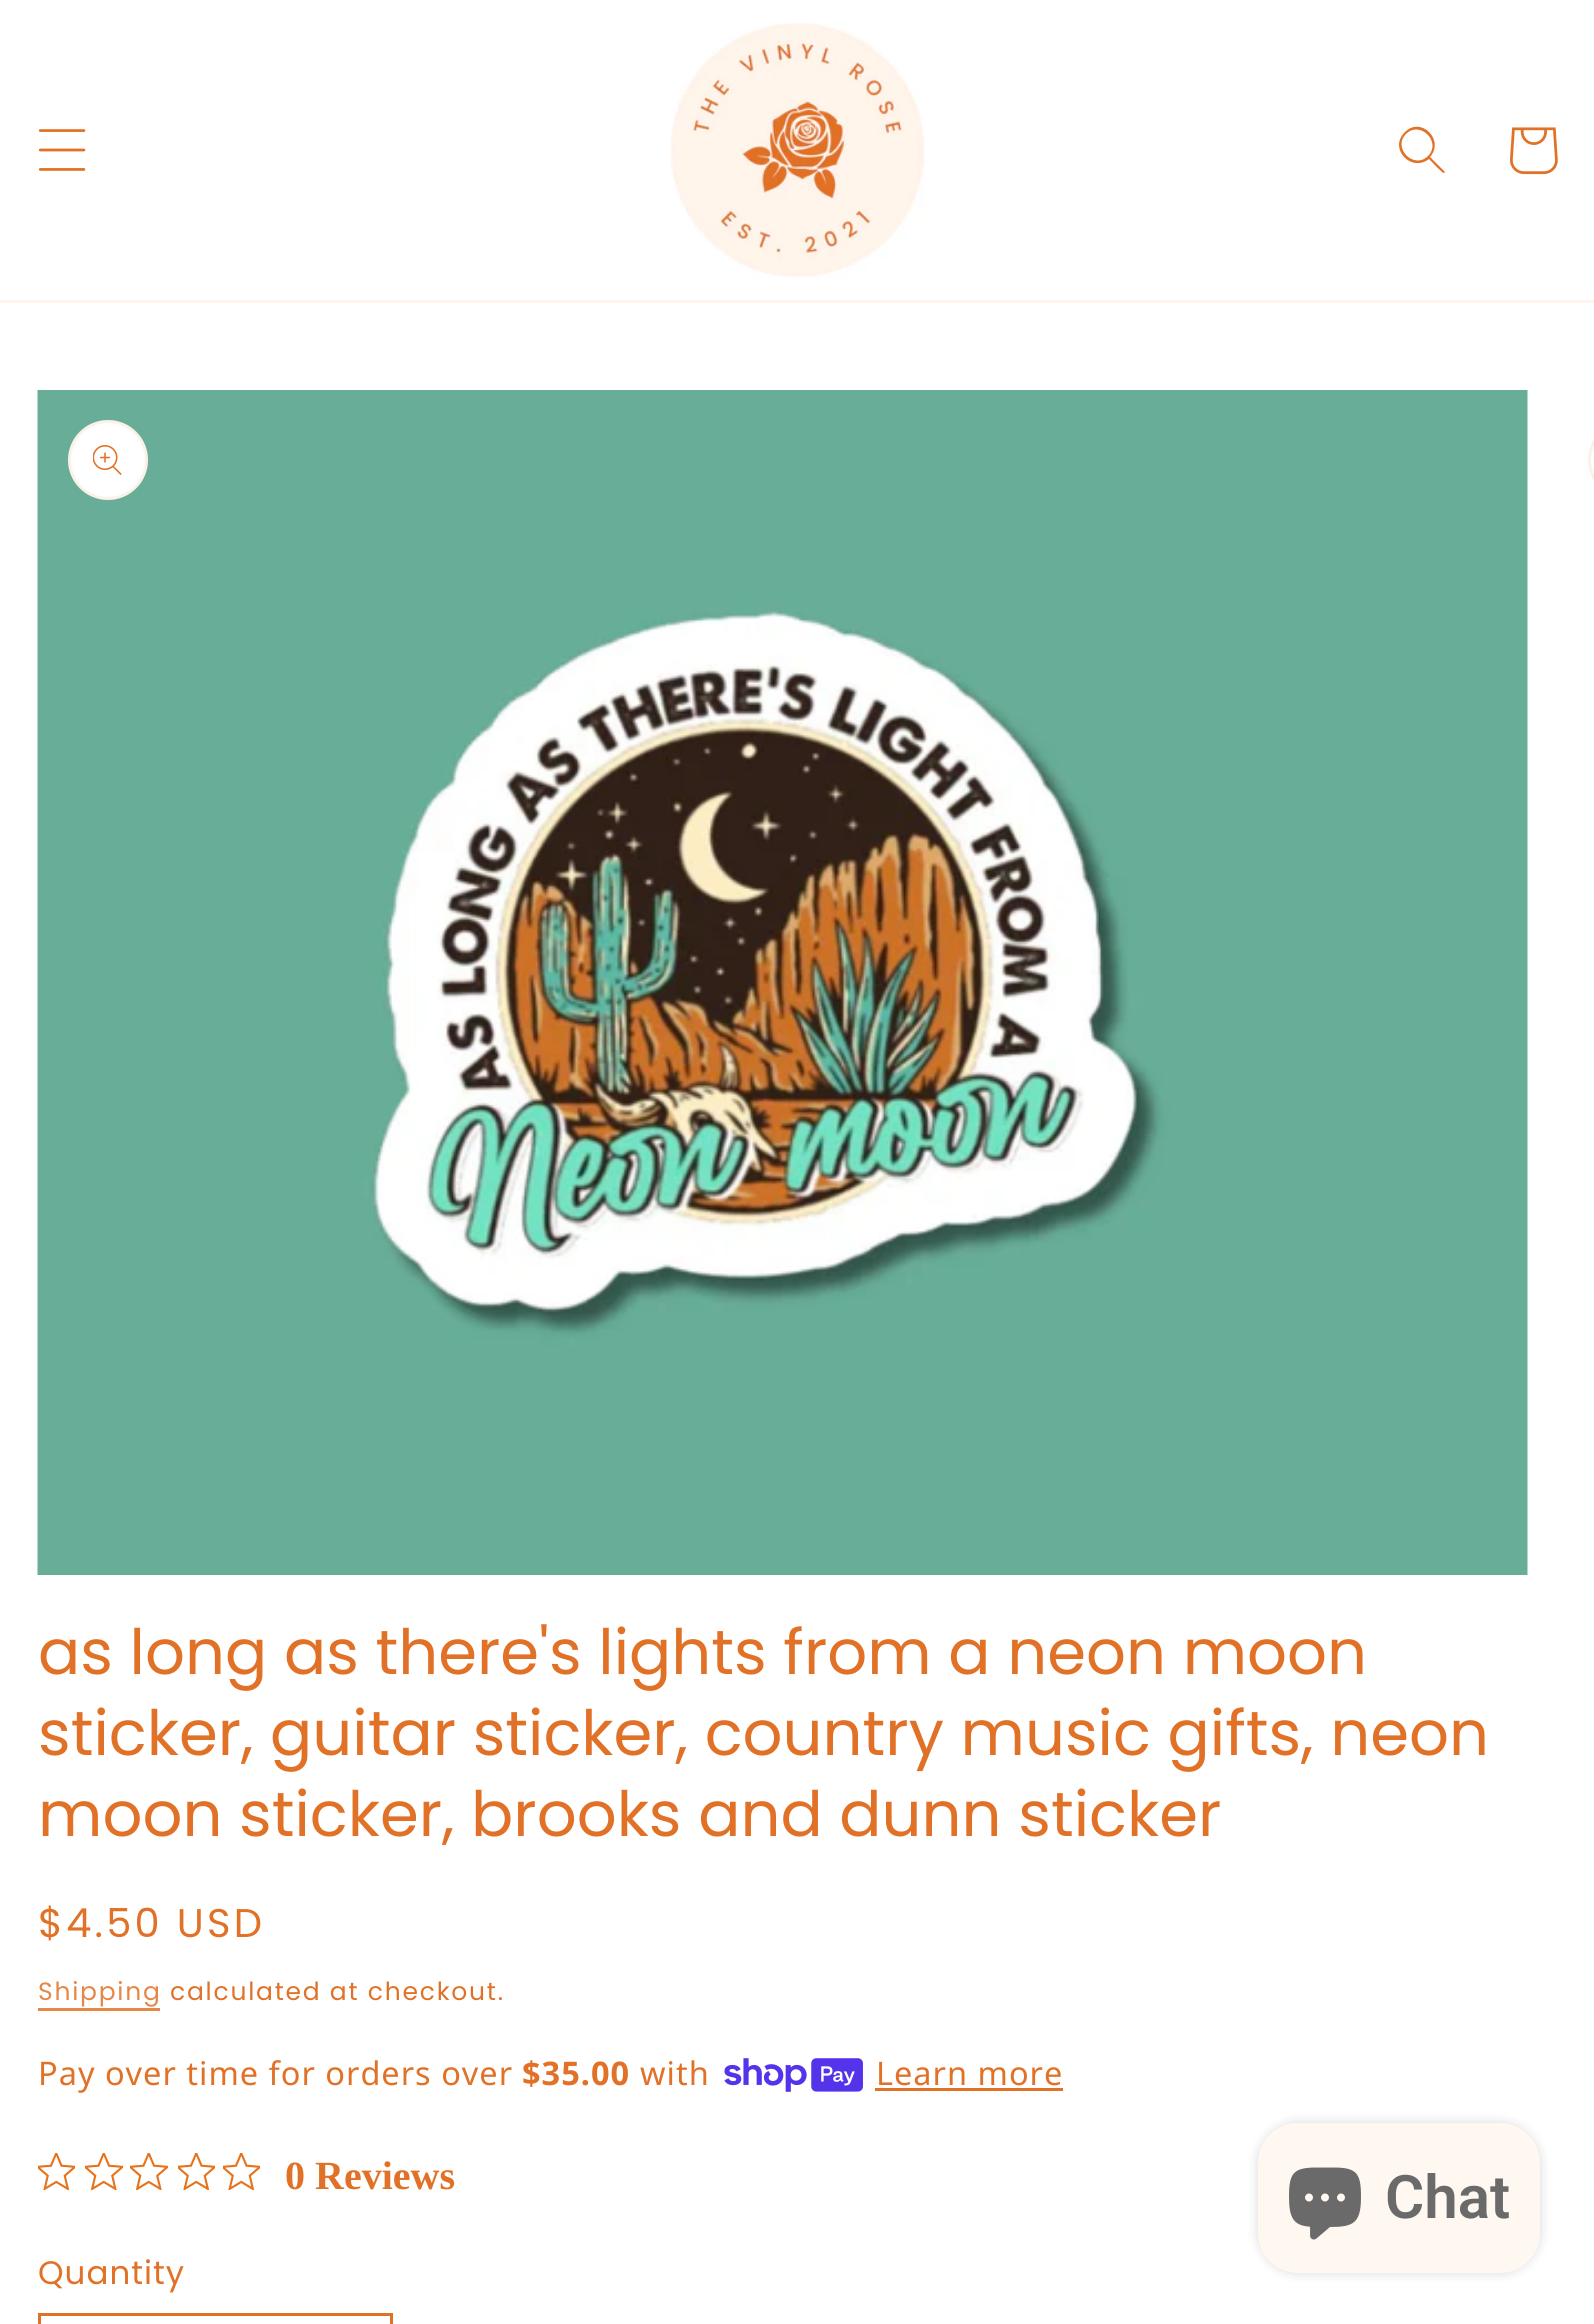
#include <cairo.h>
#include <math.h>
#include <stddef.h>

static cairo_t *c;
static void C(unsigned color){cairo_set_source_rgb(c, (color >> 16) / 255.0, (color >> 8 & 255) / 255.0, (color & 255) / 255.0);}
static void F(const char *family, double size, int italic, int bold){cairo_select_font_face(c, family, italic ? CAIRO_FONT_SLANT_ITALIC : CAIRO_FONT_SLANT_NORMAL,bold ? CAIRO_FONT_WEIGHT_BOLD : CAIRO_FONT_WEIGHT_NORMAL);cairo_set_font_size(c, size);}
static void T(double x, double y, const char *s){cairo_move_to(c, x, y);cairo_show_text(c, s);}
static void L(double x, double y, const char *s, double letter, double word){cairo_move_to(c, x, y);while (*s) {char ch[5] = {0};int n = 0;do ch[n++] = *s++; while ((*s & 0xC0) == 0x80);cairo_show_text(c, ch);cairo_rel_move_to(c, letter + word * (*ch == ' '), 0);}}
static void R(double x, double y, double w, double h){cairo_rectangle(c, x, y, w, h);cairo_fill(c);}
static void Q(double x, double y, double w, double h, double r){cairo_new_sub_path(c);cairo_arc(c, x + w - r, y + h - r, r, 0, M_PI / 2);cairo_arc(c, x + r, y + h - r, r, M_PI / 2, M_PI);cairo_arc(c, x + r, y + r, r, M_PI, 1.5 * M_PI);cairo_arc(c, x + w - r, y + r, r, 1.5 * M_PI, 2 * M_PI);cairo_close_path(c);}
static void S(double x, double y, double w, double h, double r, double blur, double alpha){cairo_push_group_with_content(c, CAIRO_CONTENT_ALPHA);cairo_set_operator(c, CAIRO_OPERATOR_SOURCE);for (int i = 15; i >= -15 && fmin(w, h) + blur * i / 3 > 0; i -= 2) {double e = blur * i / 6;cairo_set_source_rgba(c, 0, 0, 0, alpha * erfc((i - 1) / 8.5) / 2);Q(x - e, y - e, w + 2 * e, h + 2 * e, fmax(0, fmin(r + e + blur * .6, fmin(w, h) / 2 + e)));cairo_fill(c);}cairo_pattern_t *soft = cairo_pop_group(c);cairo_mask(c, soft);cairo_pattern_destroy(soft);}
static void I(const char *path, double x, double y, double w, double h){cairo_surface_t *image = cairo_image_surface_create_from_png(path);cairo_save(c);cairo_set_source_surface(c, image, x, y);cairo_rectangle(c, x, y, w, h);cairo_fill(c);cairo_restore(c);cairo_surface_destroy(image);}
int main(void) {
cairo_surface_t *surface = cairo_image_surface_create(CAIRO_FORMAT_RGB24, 1594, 2324);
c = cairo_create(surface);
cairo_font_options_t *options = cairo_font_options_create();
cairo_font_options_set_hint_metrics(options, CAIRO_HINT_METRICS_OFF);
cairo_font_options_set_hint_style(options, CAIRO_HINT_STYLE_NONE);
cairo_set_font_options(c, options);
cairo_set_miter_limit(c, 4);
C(0xffffff);
cairo_paint(c);
C(0xfdf4ee);
R(0,300,1594,3);
I("1.png",38,129,48,42);
I("2.png",670,23,255,255);
C(0xe17126);
cairo_set_fill_rule(c,CAIRO_FILL_RULE_EVEN_ODD);
cairo_new_path(c);
cairo_move_to(c,1428,156);
cairo_curve_to(c,1414,170,1392,148,1406,134);
cairo_curve_to(c,1420,120,1442,142,1428,156);
cairo_close_path(c);
cairo_move_to(c,1429,159);
cairo_curve_to(c,1411,173,1388,148,1405,132);
cairo_curve_to(c,1421,116,1445,140,1430,157);
cairo_line_to(c,1445,172);
cairo_line_to(c,1444,173);
cairo_curve_to(c,1443,174,1431,161,1429,159);
cairo_close_path(c);
cairo_fill(c);
I("3.png",1510,127,48,48);
I("4.png",37,390,1491,1185);
C(0xffffff);
cairo_arc(c,108,460,40,0,2 * M_PI);
cairo_fill(c);
cairo_arc(c,108,460,38.5,0,2 * M_PI);
cairo_set_source_rgba(c,0.882,0.443,0.149,0.1);
cairo_set_line_width(c,3);
cairo_stroke(c);
I("5.png",93,445,29,30);
Q(1589.5,421.5,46,77,38.5);
C(0xfcf1e9);
cairo_stroke(c);
F("Poppins",62.5,0,0);
C(0xe17126);
T(38,1674,"as long as there's lights from a neon moon");
T(38,1755,"sticker, guitar sticker, country music gifts, neon");
T(38,1836,"moon sticker, brooks and dunn sticker");
F("Poppins",40,0,0);
L(38,1937,"$4.50 USD",3.25,0);
F("Poppins",25,0,0);
C(0xe68647);
L(38,2000,"Shipping",1.75,0);
R(38,2008,122,3);
C(0xe17126);
L(170,2000,"calculated at checkout.",1.75,0);
F("Noto Sans",32.5,0,0);
L(38,2085,"Pay over time for orders over",1,0);
F("Noto Sans",32.5,0,1);
L(522,2085,"$35.00",1,0);
F("Noto Sans",32.5,0,0);
L(640,2085,"with",1,0);
I("6.png",724,2058,139,34);
L(876,2085,"Learn more",1,0);
R(875,2088,188,3);
I("7.png",38,2153,37,37);
I("8.png",85,2153,38,37);
I("8.png",130,2153,38,37);
I("7.png",178,2153,37,37);
I("7.png",223,2153,37,37);
F("Liberation Serif",40,0,1);
T(285,2189,"0 Reviews");
F("Poppins",32.5,0,0);
L(38,2284,"Quantity",1,0);
cairo_rectangle(c,39.5,2314.5,352,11);
cairo_stroke(c);
C(0x000000);
S(1258,2123,282,150,40,6,.15);
C(0xfff8f1);
Q(1258,2123,282,150,40);
cairo_fill(c);
I("9.png",1289,2167,72,73);
F("Roboto SemiBold",60,0,0);
C(0x6a6a6a);
T(1385,2218,"Chat");
cairo_surface_write_to_png(surface, "o.png");
cairo_font_options_destroy(options);
cairo_destroy(c);
cairo_surface_destroy(surface);
return 0;
}
